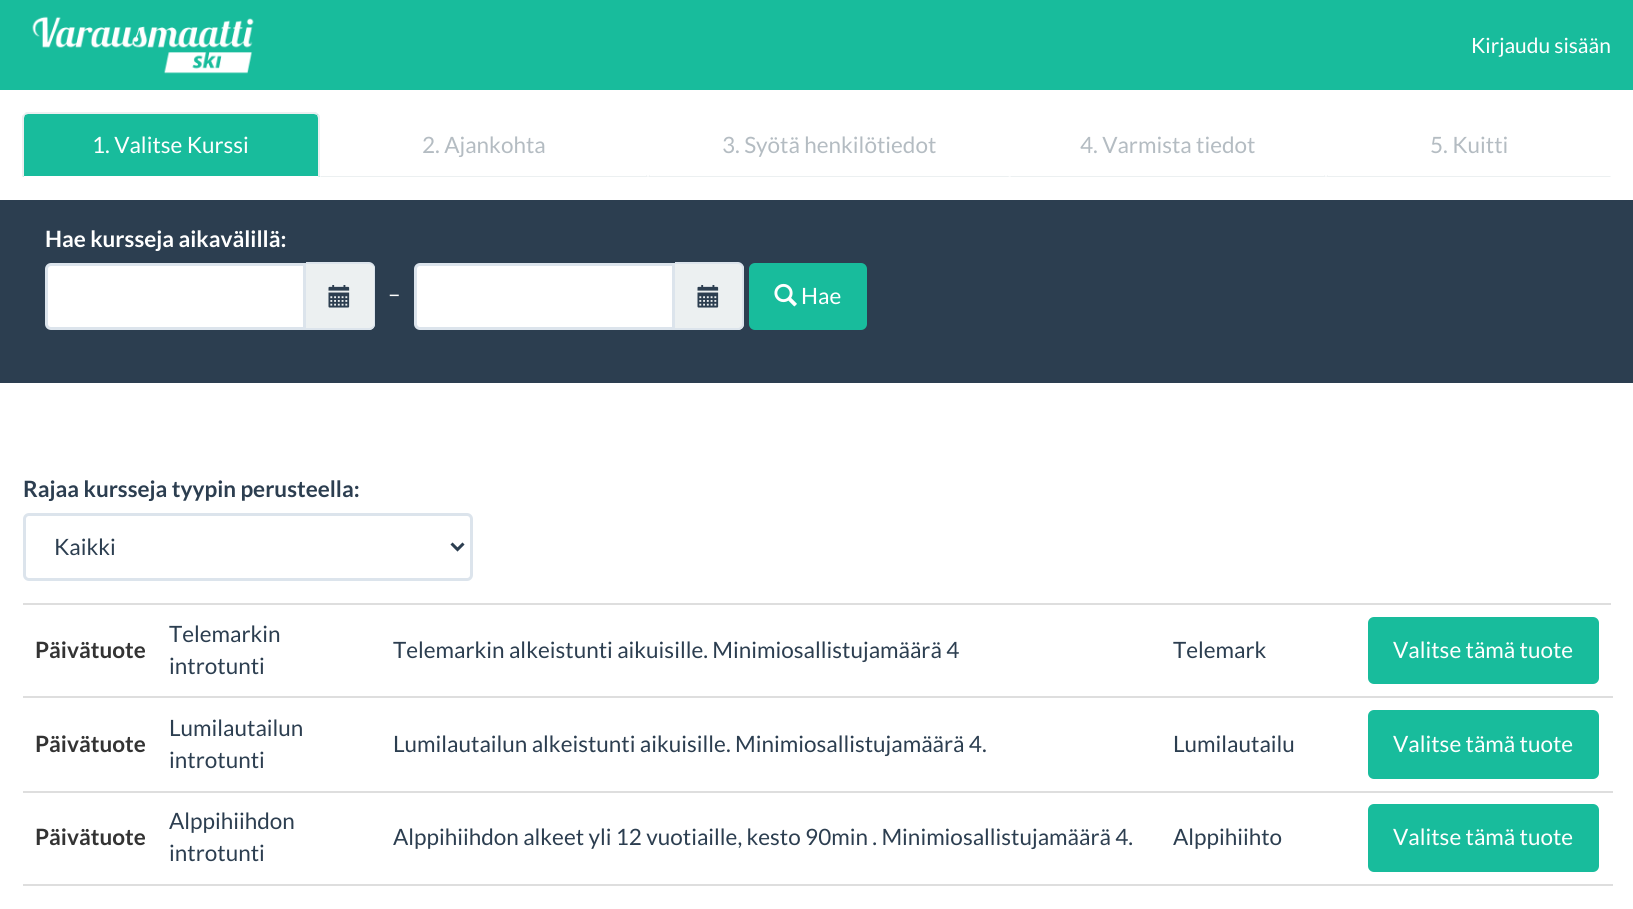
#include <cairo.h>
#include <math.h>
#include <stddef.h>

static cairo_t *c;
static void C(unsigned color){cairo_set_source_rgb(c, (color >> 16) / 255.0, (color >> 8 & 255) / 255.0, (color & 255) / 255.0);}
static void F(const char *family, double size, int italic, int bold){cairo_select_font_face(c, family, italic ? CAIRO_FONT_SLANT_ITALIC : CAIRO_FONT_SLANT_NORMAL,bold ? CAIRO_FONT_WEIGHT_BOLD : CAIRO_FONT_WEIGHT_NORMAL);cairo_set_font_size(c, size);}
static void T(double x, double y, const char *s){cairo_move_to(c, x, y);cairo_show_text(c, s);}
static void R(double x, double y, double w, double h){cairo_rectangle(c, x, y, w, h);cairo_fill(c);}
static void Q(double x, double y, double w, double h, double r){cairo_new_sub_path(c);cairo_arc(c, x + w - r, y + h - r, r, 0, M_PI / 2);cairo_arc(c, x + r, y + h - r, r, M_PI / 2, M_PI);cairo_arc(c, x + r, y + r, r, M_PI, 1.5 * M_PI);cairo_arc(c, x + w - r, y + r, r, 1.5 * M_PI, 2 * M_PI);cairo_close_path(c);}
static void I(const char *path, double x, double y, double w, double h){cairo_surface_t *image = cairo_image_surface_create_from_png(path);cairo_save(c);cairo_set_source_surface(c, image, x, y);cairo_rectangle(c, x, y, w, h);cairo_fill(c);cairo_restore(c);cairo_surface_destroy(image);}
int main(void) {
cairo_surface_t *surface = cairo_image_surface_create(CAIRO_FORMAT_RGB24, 1633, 909);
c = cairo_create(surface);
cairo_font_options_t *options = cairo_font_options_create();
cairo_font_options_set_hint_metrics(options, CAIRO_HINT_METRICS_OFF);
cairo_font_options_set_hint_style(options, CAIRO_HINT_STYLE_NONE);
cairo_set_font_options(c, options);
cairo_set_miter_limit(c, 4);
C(0xffffff);
cairo_paint(c);
C(0x18bc9c);
R(0,0,1633,90);
I("1.png",32,16,222,58);
F("Lato",21,0,0);
C(0xffffff);
T(1471,53,"Kirjaudu sisään");
C(0x18bc9c);
cairo_new_path(c);
cairo_move_to(c,29,113);
cairo_line_to(c,314,113);
cairo_curve_to(c,317.5,113,320,115.5,320,119);
cairo_line_to(c,320,177);
cairo_line_to(c,23,177);
cairo_line_to(c,23,119);
cairo_curve_to(c,23,115.5,25.5,113,29,113);
cairo_close_path(c);
cairo_fill(c);
C(0xecf0f1);
cairo_new_path(c);
cairo_move_to(c,28,114);
cairo_line_to(c,25,115);
cairo_line_to(c,24,114);
cairo_line_to(c,26,112);
cairo_line_to(c,316,112);
cairo_line_to(c,318,114);
cairo_line_to(c,317,115);
cairo_line_to(c,314,114);
cairo_close_path(c);
cairo_fill(c);
cairo_new_path(c);
cairo_move_to(c,320,116);
cairo_line_to(c,320,177);
cairo_line_to(c,318,176);
cairo_line_to(c,318,118);
cairo_line_to(c,317,115);
cairo_line_to(c,318,114);
cairo_close_path(c);
cairo_fill(c);
C(0xffffff);
cairo_new_path(c);
cairo_move_to(c,320,177);
cairo_line_to(c,318,176);
cairo_line_to(c,24,176);
cairo_line_to(c,22,177);
cairo_close_path(c);
cairo_fill(c);
C(0xecf0f1);
cairo_new_path(c);
cairo_move_to(c,22,177);
cairo_line_to(c,22,116);
cairo_line_to(c,24,114);
cairo_line_to(c,25,115);
cairo_line_to(c,24,118);
cairo_line_to(c,24,176);
cairo_close_path(c);
cairo_fill(c);
F("Lato",22.5,0,0);
C(0xffffff);
T(92,153,"1. Valitse Kurssi");
C(0xecf0f1);
cairo_new_path(c);
cairo_move_to(c,648,177);
cairo_line_to(c,646,175);
cairo_line_to(c,646,176);
cairo_line_to(c,321,176);
cairo_line_to(c,320,177);
cairo_close_path(c);
cairo_fill(c);
C(0xb4bcc2);
T(422,153,"2. Ajankohta");
C(0xecf0f1);
cairo_new_path(c);
cairo_move_to(c,1010,177);
cairo_line_to(c,1008,176);
cairo_line_to(c,650,176);
cairo_line_to(c,650,175);
cairo_line_to(c,648,177);
cairo_close_path(c);
cairo_fill(c);
C(0xb4bcc2);
T(722,153,"3. Syötä henkilötiedot");
C(0xecf0f1);
cairo_new_path(c);
cairo_move_to(c,1326,177);
cairo_line_to(c,1324,175);
cairo_line_to(c,1324,176);
cairo_line_to(c,1011,176);
cairo_line_to(c,1010,177);
cairo_close_path(c);
cairo_fill(c);
C(0xb4bcc2);
T(1080,153,"4. Varmista tiedot");
C(0xecf0f1);
cairo_new_path(c);
cairo_move_to(c,1611,177);
cairo_line_to(c,1610,176);
cairo_line_to(c,1328,176);
cairo_line_to(c,1328,175);
cairo_line_to(c,1326,177);
cairo_close_path(c);
cairo_fill(c);
C(0xb4bcc2);
T(1430,153,"5. Kuitti");
C(0x2c3e50);
R(0,200,1633,183);
F("Lato",22.5,0,1);
C(0xffffff);
T(45,247,"Hae kursseja aikavälillä:");
cairo_new_path(c);
cairo_move_to(c,51,264.5);
cairo_line_to(c,304.5,264.5);
cairo_line_to(c,304.5,328.5);
cairo_line_to(c,51,328.5);
cairo_curve_to(c,48.5,328.5,46.5,326.5,46.5,324);
cairo_line_to(c,46.5,269);
cairo_curve_to(c,46.5,266.5,48.5,264.5,51,264.5);
cairo_close_path(c);
cairo_fill_preserve(c);
C(0xdce4ec);
cairo_set_line_width(c,3);
cairo_stroke(c);
C(0xecf0f1);
cairo_new_path(c);
cairo_move_to(c,306,263);
cairo_line_to(c,369,263);
cairo_curve_to(c,372.5,263,375,265.5,375,269);
cairo_line_to(c,375,324);
cairo_curve_to(c,375,327.5,372.5,330,369,330);
cairo_line_to(c,306,330);
cairo_close_path(c);
cairo_fill(c);
C(0xdce4ec);
cairo_set_fill_rule(c,CAIRO_FILL_RULE_EVEN_ODD);
cairo_new_path(c);
cairo_move_to(c,306,262);
cairo_line_to(c,369,262);
cairo_curve_to(c,372,262,375,265,375,268);
cairo_line_to(c,375,324);
cairo_curve_to(c,375,327,372,330,369,330);
cairo_line_to(c,306,330);
cairo_close_path(c);
cairo_move_to(c,306,264);
cairo_line_to(c,369,264);
cairo_curve_to(c,371,264,374,266,374,268);
cairo_line_to(c,374,324);
cairo_curve_to(c,374,326,371,328,369,328);
cairo_line_to(c,306,328);
cairo_close_path(c);
cairo_fill(c);
I("2.png",328,285,22,23);
F("Lato",22.5,0,0);
C(0xffffff);
T(388,302,"–");
cairo_new_path(c);
cairo_move_to(c,420,264.5);
cairo_line_to(c,673.5,264.5);
cairo_line_to(c,673.5,328.5);
cairo_line_to(c,420,328.5);
cairo_curve_to(c,417.5,328.5,415.5,326.5,415.5,324);
cairo_line_to(c,415.5,269);
cairo_curve_to(c,415.5,266.5,417.5,264.5,420,264.5);
cairo_close_path(c);
cairo_fill_preserve(c);
C(0xdce4ec);
cairo_stroke(c);
C(0xecf0f1);
cairo_new_path(c);
cairo_move_to(c,675,263);
cairo_line_to(c,738,263);
cairo_curve_to(c,741.5,263,744,265.5,744,269);
cairo_line_to(c,744,324);
cairo_curve_to(c,744,327.5,741.5,330,738,330);
cairo_line_to(c,675,330);
cairo_close_path(c);
cairo_fill(c);
C(0xdce4ec);
cairo_new_path(c);
cairo_move_to(c,675,262);
cairo_line_to(c,738,262);
cairo_curve_to(c,741,262,744,265,744,268);
cairo_line_to(c,744,324);
cairo_curve_to(c,744,327,741,330,738,330);
cairo_line_to(c,675,330);
cairo_close_path(c);
cairo_move_to(c,675,264);
cairo_line_to(c,738,264);
cairo_curve_to(c,740,264,742,266,742,268);
cairo_line_to(c,742,324);
cairo_curve_to(c,742,326,740,328,738,328);
cairo_line_to(c,675,328);
cairo_close_path(c);
cairo_fill(c);
I("2.png",697,285,22,23);
C(0x18bc9c);
Q(750.5,264.5,115,64,4.5);
cairo_fill_preserve(c);
cairo_stroke(c);
I("3.png",774,283,23,24);
C(0xffffff);
T(801,304,"Hae");
F("Lato",22.5,0,1);
C(0x2c3e50);
T(23,497,"Rajaa kursseja tyypin perusteella:");
Q(24.5,514.5,447,65,4.5);
C(0xdce4ec);
cairo_stroke(c);
cairo_new_path(c);
cairo_move_to(c,451.5,543.5);
cairo_line_to(c,457.5,549.5);
cairo_line_to(c,463.5,543.5);
C(0x2c3e50);
cairo_stroke(c);
F("Lato",22.5,0,0);
T(54,555,"Kaikki");
C(0xdedede);
R(23,603,1588,2);
R(23,696,1590,2);
F("Lato",22.5,0,1);
C(0x333333);
T(35,658,"Päivätuote");
F("Lato",22.5,0,0);
C(0x2c3e50);
T(169,642,"Telemarkin");
T(169,674,"introtunti");
T(393,658,"Telemarkin alkeistunti aikuisille. Minimiosallistujamäärä 4");
T(1173,658,"Telemark");
C(0x18bc9c);
Q(1369.5,618.5,228,64,4.5);
cairo_fill_preserve(c);
cairo_stroke(c);
C(0xffffff);
T(1393,658,"Valitse tämä tuote");
C(0xdedede);
R(23,791,1590,2);
F("Lato",22.5,0,1);
C(0x333333);
T(35,752,"Päivätuote");
F("Lato",22.5,0,0);
C(0x2c3e50);
T(169,736,"Lumilautailun");
T(169,768,"introtunti");
T(393,752,"Lumilautailun alkeistunti aikuisille. Minimiosallistujamäärä 4.");
T(1173,752,"Lumilautailu");
C(0x18bc9c);
Q(1369.5,711.5,228,66,4.5);
cairo_fill_preserve(c);
cairo_stroke(c);
C(0xffffff);
T(1393,752,"Valitse tämä tuote");
C(0xdedede);
R(23,884,1590,2);
F("Lato",22.5,0,1);
C(0x333333);
T(35,845,"Päivätuote");
F("Lato",22.5,0,0);
C(0x2c3e50);
T(169,829,"Alppihiihdon");
T(169,861,"introtunti");
T(393,845,"Alppihiihdon alkeet yli 12 vuotiaille, kesto 90min . Minimiosallistujamäärä 4.");
T(1173,845,"Alppihiihto");
C(0x18bc9c);
Q(1369.5,805.5,228,65,4.5);
cairo_fill_preserve(c);
cairo_stroke(c);
C(0xffffff);
T(1393,845,"Valitse tämä tuote");
cairo_surface_write_to_png(surface, "o.png");
cairo_font_options_destroy(options);
cairo_destroy(c);
cairo_surface_destroy(surface);
return 0;
}
